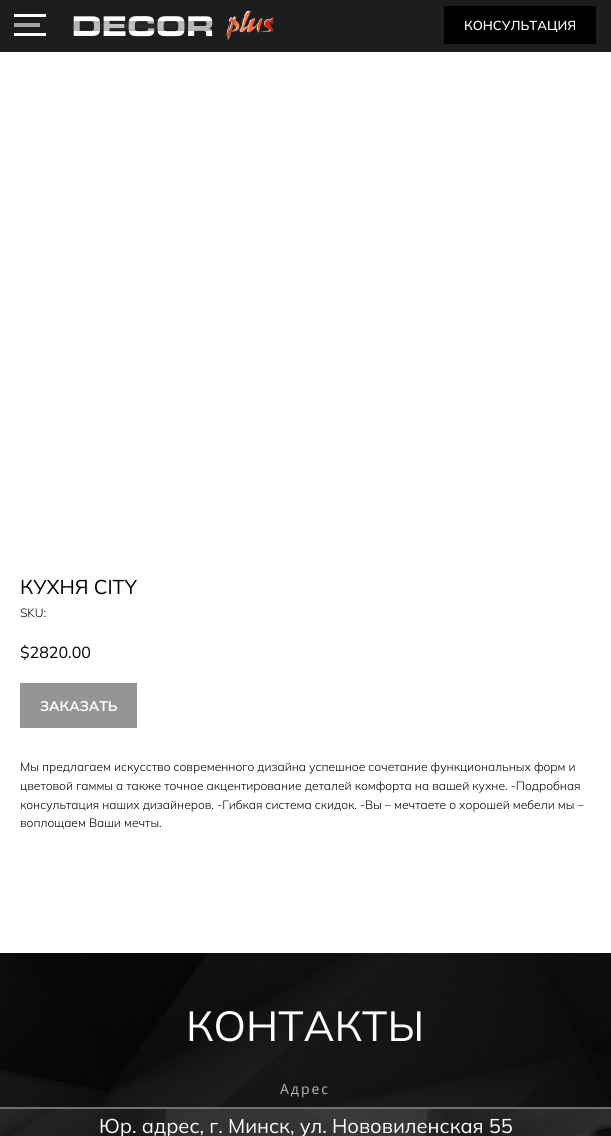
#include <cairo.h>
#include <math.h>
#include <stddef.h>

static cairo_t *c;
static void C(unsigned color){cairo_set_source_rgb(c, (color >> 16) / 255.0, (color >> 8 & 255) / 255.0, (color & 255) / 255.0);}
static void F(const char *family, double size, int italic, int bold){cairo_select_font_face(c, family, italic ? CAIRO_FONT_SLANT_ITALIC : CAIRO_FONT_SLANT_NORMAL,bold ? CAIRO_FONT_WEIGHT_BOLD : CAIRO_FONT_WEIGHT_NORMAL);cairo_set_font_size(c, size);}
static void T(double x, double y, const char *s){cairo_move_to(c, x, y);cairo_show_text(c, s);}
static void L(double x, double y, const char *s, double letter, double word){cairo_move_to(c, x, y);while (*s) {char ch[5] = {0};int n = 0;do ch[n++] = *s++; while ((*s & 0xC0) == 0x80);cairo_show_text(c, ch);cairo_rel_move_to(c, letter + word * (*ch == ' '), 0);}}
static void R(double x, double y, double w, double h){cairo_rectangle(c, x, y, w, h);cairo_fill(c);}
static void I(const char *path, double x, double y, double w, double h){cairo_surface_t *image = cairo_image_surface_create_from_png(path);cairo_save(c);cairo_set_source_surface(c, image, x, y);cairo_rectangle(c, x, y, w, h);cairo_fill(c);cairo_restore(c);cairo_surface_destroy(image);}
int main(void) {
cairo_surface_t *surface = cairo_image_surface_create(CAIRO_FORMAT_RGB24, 611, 1136);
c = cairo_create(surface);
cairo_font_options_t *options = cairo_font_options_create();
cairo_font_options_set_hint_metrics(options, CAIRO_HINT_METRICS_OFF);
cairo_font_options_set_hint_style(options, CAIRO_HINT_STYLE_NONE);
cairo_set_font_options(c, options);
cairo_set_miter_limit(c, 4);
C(0xffffff);
cairo_paint(c);
C(0x1c1d1f);
R(0,0,611,52);
C(0xffffff);
R(14,14,32,3);
C(0xa4a5a5);
R(14,23,26,4);
C(0xffffff);
R(14,33,32,3);
I("1.png",73,10,201,30);
C(0x000000);
R(444,6,152,38);
F("Mulish SemiBold",13,0,0);
C(0xfdfdfd);
T(464,30,"КОНСУЛЬТАЦИЯ");
F("Mulish",20,0,0);
C(0x000000);
T(20,594,"КУХНЯ CITY");
F("Mulish Light",12,0,0);
T(20,617,"SKU:");
F("Mulish",16,0,0);
T(20,658,"$2820.00");
C(0x959595);
R(20,683,117,45);
F("Mulish",14,0,1);
C(0xfdfdfd);
T(40,711,"ЗАКАЗАТЬ");
F("Mulish Light",12,0,0);
C(0x000000);
T(20,771,"Мы предлагаем искусство современного дизайна успешное сочетание функциональных форм и");
T(20,790,"цветовой гаммы а также точное акцентирование деталей комфорта на вашей кухне. -Подробная");
T(20,809,"консультация наших дизайнеров. -Гибкая система скидок. -Вы – мечтаете о хорошей мебели мы –");
T(20,827,"воплощаем Ваши мечты.");
I("2.png",0,953,611,183);
F("Mulish",42,0,0);
C(0xfdfdfd);
T(186,1041,"КОНТАКТЫ");
F("Open Sans",14,0,0);
C(0xb6bbb7);
L(280,1094,"Адрес",2,0);
F("Mulish",20,0,0);
C(0xfdfdfd);
T(99,1133,"Юр. адрес, г. Минск, ул. Нововиленская 55");
cairo_surface_write_to_png(surface, "o.png");
cairo_font_options_destroy(options);
cairo_destroy(c);
cairo_surface_destroy(surface);
return 0;
}
